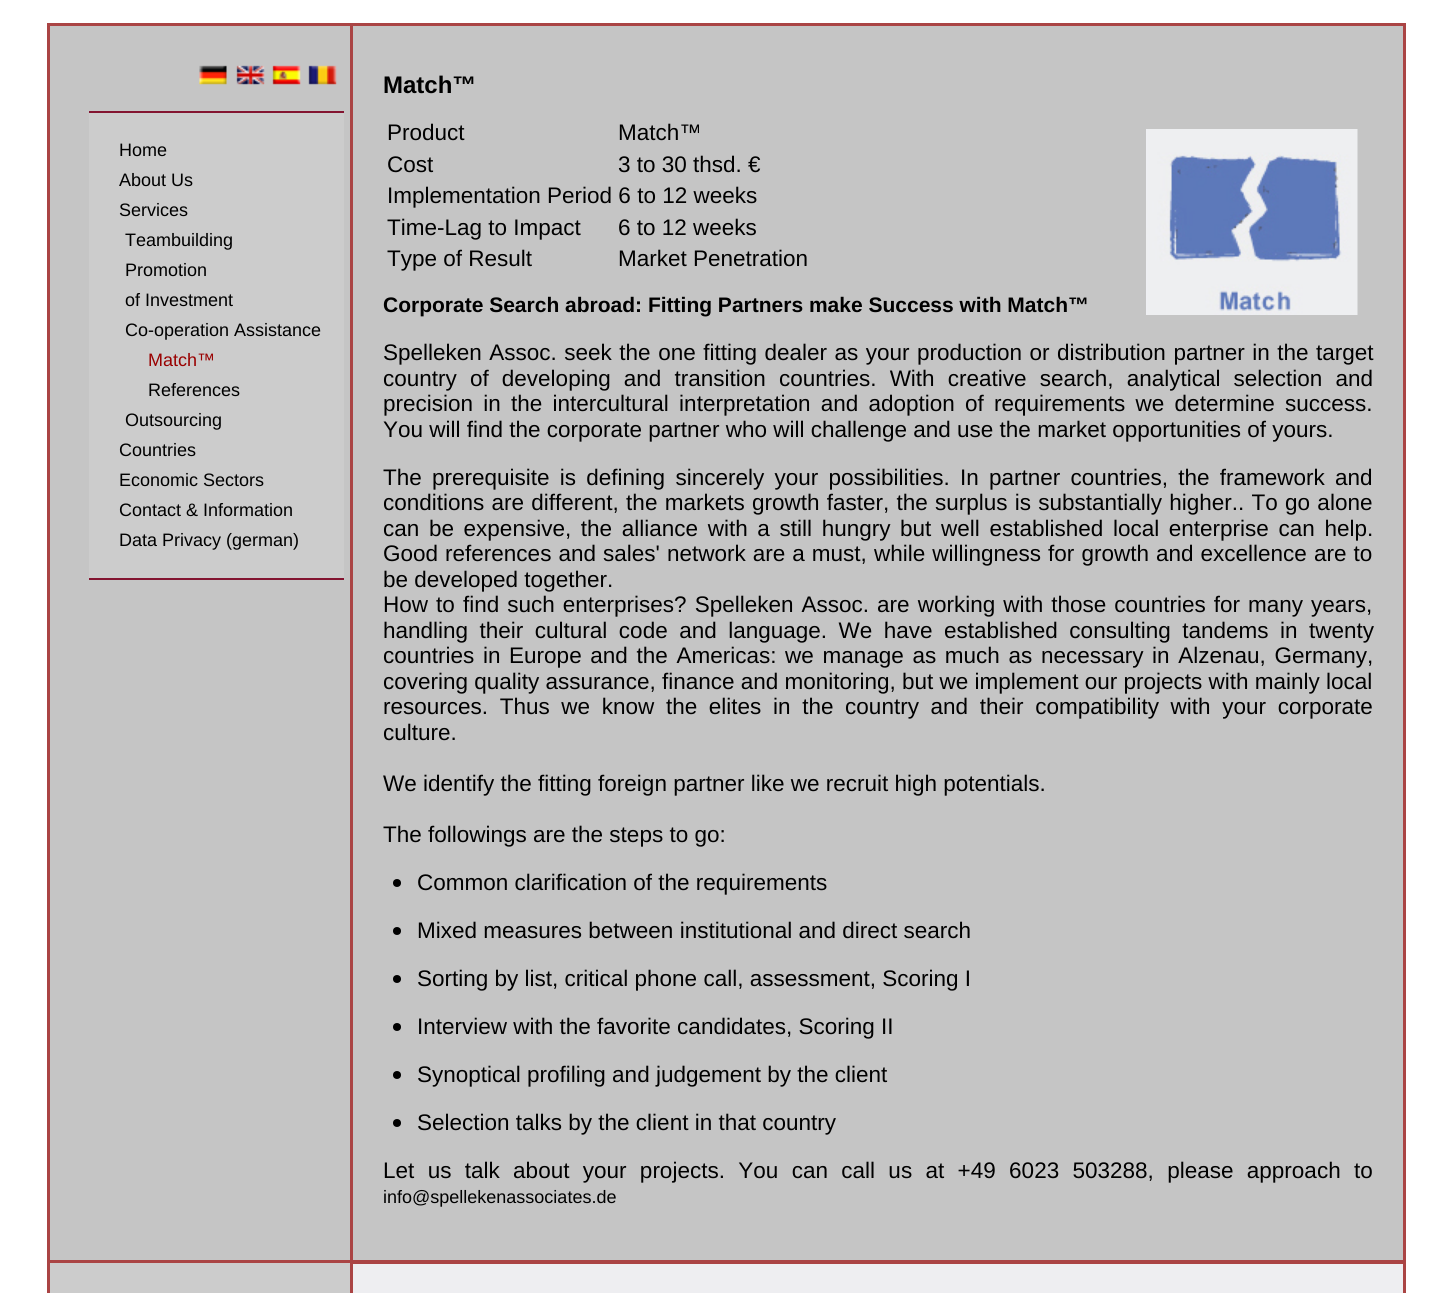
#include <cairo.h>
#include <math.h>
#include <stddef.h>

static cairo_t *c;
static void C(unsigned color){cairo_set_source_rgb(c, (color >> 16) / 255.0, (color >> 8 & 255) / 255.0, (color & 255) / 255.0);}
static void F(const char *family, double size, int italic, int bold){cairo_select_font_face(c, family, italic ? CAIRO_FONT_SLANT_ITALIC : CAIRO_FONT_SLANT_NORMAL,bold ? CAIRO_FONT_WEIGHT_BOLD : CAIRO_FONT_WEIGHT_NORMAL);cairo_set_font_size(c, size);}
static void T(double x, double y, const char *s){cairo_move_to(c, x, y);cairo_show_text(c, s);}
static void L(double x, double y, const char *s, double letter, double word){cairo_move_to(c, x, y);while (*s) {char ch[5] = {0};int n = 0;do ch[n++] = *s++; while ((*s & 0xC0) == 0x80);cairo_show_text(c, ch);cairo_rel_move_to(c, letter + word * (*ch == ' '), 0);}}
static void R(double x, double y, double w, double h){cairo_rectangle(c, x, y, w, h);cairo_fill(c);}
static void I(const char *path, double x, double y, double w, double h){cairo_surface_t *image = cairo_image_surface_create_from_png(path);cairo_save(c);cairo_set_source_surface(c, image, x, y);cairo_rectangle(c, x, y, w, h);cairo_fill(c);cairo_restore(c);cairo_surface_destroy(image);}
int main(void) {
cairo_surface_t *surface = cairo_image_surface_create(CAIRO_FORMAT_RGB24, 1448, 1293);
c = cairo_create(surface);
cairo_font_options_t *options = cairo_font_options_create();
cairo_font_options_set_hint_metrics(options, CAIRO_HINT_METRICS_OFF);
cairo_font_options_set_hint_style(options, CAIRO_HINT_STYLE_NONE);
cairo_set_font_options(c, options);
cairo_set_miter_limit(c, 4);
C(0xffffff);
cairo_paint(c);
C(0xc5c5c5);
R(50,26,1353,1234);
C(0xaa4444);
R(47,23,1359,3);
R(47,1260,304,3);
R(47,1260,3,33);
R(47,23,3,1239);
I("1.png",199,65,28,20);
I("2.png",236,65,29,20);
I("3.png",272,65,29,20);
I("4.png",308,65,29,20);
C(0xcccccc);
R(89,113,255,465);
C(0x831430);
R(89,111,255,2);
R(89,578,255,2);
F("Liberation Sans",18,0,0);
C(0x000000);
T(119,156,"Home");
T(119,186,"About Us");
T(119,216,"Services");
T(125,246,"Teambuilding");
T(125,276,"Promotion");
T(125,306,"of Investment");
T(125,336,"Co-operation Assistance");
C(0x990000);
T(148,366,"Match™");
C(0x000000);
T(148,396,"References");
T(125,426,"Outsourcing");
T(119,456,"Countries");
T(119,486,"Economic Sectors");
T(119,516,"Contact & Information");
T(119,546,"Data Privacy (german)");
C(0xaa4444);
R(1403,23,3,1239);
R(351,1260,1055,2);
R(350,1260,1,33);
R(350,23,3,1239);
F("Liberation Sans",24,0,1);
C(0x000000);
T(383,93,"Match™");
F("Liberation Sans",22.5,0,0);
T(387,140,"Product");
T(618,140,"Match™");
T(387,172,"Cost");
T(618,172,"3 to 30 thsd. €");
T(387,203,"Implementation Period 6 to 12 weeks");
T(387,235,"Time-Lag to Impact");
T(618,235,"6 to 12 weeks");
T(387,266,"Type of Result");
T(618,266,"Market Penetration");
I("5.png",1146,129,212,186);
F("Liberation Sans",21,0,1);
T(383,312,"Corporate Search abroad: Fitting Partners make Success with Match™");
F("Liberation Sans",22.5,0,0);
L(383,360,"Spelleken Assoc. seek the one fitting dealer as your production or distribution partner in the target",0,1.25);
L(383,386,"country of developing and transition countries. With creative search, analytical selection and",0,6.9);
L(383,411,"precision in the intercultural interpretation and adoption of requirements we determine success.",0,4);
T(383,437,"You will find the corporate partner who will challenge and use the market opportunities of yours.");
L(383,485,"The prerequisite is defining sincerely your possibilities. In partner countries, the framework and",0,4);
L(383,510,"conditions are different, the markets growth faster, the surplus is substantially higher.. To go alone",0,1);
L(383,536,"can be expensive, the alliance with a still hungry but well established local enterprise can help.",0,3.4);
L(383,561,"Good references and sales' network are a must, while willingness for growth and excellence are to",0,.8);
T(383,587,"be developed together.");
L(383,612,"How to find such enterprises? Spelleken Assoc. are working with those countries for many years,",0,1.8);
L(383,638,"handling their cultural code and language. We have established consulting tandems in twenty",0,5.25);
L(383,663,"countries in Europe and the Americas: we manage as much as necessary in Alzenau, Germany,",0,2.4);
T(383,689,"covering quality assurance, finance and monitoring, but we implement our projects with mainly local");
L(383,714,"resources. Thus we know the elites in the country and their compatibility with your corporate",0,5.4);
T(383,740,"culture.");
T(383,791,"We identify the fitting foreign partner like we recruit high potentials.");
T(383,842,"The followings are the steps to go:");
cairo_new_path(c);
cairo_arc(c,397,883,4,0,2 * M_PI);
cairo_fill(c);
T(417,890,"Common clarification of the requirements");
cairo_new_path(c);
cairo_arc(c,397,931,4,0,2 * M_PI);
cairo_fill(c);
T(417,938,"Mixed measures between institutional and direct search");
cairo_new_path(c);
cairo_arc(c,397,979,4,0,2 * M_PI);
cairo_fill(c);
T(417,986,"Sorting by list, critical phone call, assessment, Scoring I");
cairo_new_path(c);
cairo_arc(c,397,1027,4,0,2 * M_PI);
cairo_fill(c);
T(417,1034,"Interview with the favorite candidates, Scoring II");
cairo_new_path(c);
cairo_arc(c,397,1075,4,0,2 * M_PI);
cairo_fill(c);
T(417,1082,"Synoptical profiling and judgement by the client");
cairo_new_path(c);
cairo_arc(c,397,1123,4,0,2 * M_PI);
cairo_fill(c);
T(417,1130,"Selection talks by the client in that country");
L(383,1178,"Let us talk about your projects. You can call us at +49 6023 503288, please approach to",0,7.1);
F("Liberation Sans",18,0,0);
T(383,1203,"info@spellekenassociates.de");
C(0xcccccc);
R(50,1263,300,30);
C(0xeeeef1);
R(353,1264,1050,29);
C(0xaa4444);
R(351,1262,1055,2);
R(1403,1262,3,31);
R(351,1262,2,31);
cairo_surface_write_to_png(surface, "o.png");
cairo_font_options_destroy(options);
cairo_destroy(c);
cairo_surface_destroy(surface);
return 0;
}
